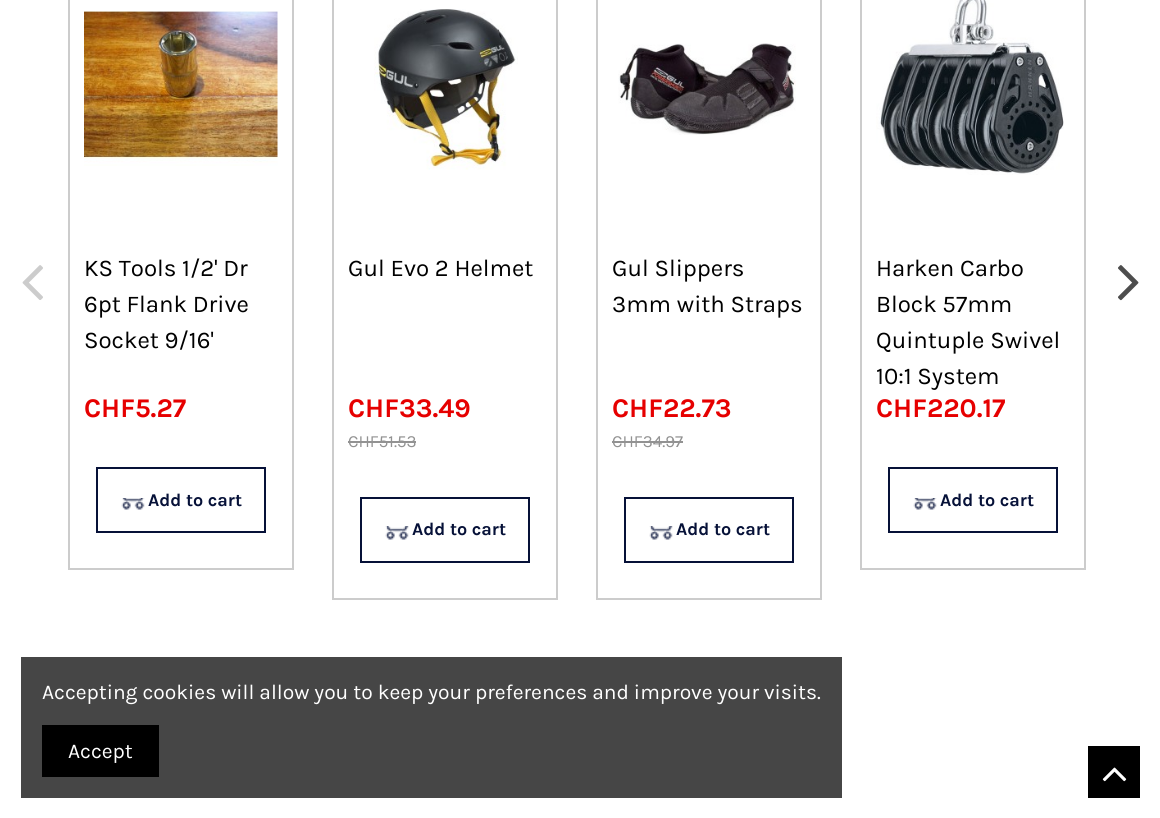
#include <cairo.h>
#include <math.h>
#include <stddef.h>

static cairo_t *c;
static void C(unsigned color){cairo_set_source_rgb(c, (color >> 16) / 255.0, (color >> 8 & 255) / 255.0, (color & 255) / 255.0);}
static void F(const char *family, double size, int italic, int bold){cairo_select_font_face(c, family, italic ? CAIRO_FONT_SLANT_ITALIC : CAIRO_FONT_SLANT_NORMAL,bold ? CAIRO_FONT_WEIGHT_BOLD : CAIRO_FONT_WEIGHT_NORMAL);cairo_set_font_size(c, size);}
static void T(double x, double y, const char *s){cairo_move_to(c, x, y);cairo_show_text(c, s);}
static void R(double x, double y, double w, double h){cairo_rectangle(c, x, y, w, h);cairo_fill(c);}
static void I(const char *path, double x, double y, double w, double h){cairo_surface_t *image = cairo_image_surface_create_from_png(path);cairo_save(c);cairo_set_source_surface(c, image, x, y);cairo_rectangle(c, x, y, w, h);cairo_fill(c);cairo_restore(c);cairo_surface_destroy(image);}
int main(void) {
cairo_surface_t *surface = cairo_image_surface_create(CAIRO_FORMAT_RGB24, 1160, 818);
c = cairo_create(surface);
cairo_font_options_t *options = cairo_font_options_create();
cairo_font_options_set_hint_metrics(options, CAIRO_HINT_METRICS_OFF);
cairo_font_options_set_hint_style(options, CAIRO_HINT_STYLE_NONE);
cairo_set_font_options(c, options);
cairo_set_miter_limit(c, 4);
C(0xffffff);
cairo_paint(c);
I("1.png",22,265,21,35);
cairo_rectangle(c,69,-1,224,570);
C(0xcccccc);
cairo_stroke(c);
I("2.png",84,11,194,155);
F("Karla",24,0,0);
C(0x000000);
T(84,276,"KS Tools 1/2' Dr");
T(84,312,"6pt Flank Drive");
T(84,348,"Socket 9/16'");
F("Karla",27,0,1);
C(0xe60000);
T(84,417,"CHF5.27");
cairo_rectangle(c,97,468,168,64);
C(0x061138);
cairo_stroke(c);
I("3.png",121,498,24,12);
F("Karla",18,0,1);
T(148,506,"Add to cart");
cairo_rectangle(c,333,-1,224,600);
C(0xcccccc);
cairo_stroke(c);
I("4.png",374,9,144,161);
F("Karla",24,0,0);
C(0x000000);
T(348,276,"Gul Evo 2 Helmet");
F("Karla",27,0,1);
C(0xe60000);
T(348,417,"CHF33.49");
F("Karla",17,0,0);
C(0x929292);
T(348,447,"CHF51.53");
R(348,441,68,2);
cairo_rectangle(c,361,498,168,64);
C(0x061138);
cairo_stroke(c);
I("5.png",385,526,24,14);
F("Karla",18,0,1);
T(412,535,"Add to cart");
cairo_rectangle(c,597,-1,224,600);
C(0xcccccc);
cairo_stroke(c);
I("6.png",618,43,178,92);
F("Karla",24,0,0);
C(0x000000);
T(612,276,"Gul Slippers");
T(612,312,"3mm with Straps");
F("Karla",27,0,1);
C(0xe60000);
T(612,417,"CHF22.73");
F("Karla",17,0,0);
C(0x929292);
T(612,447,"CHF34.97");
R(612,441,71,2);
cairo_rectangle(c,625,498,168,64);
C(0x061138);
cairo_stroke(c);
I("5.png",649,526,24,14);
F("Karla",18,0,1);
T(676,535,"Add to cart");
cairo_rectangle(c,861,-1,224,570);
C(0xcccccc);
cairo_stroke(c);
I("7.png",876,0,188,175);
F("Karla",24,0,0);
C(0x000000);
T(876,276,"Harken Carbo");
T(876,312,"Block 57mm");
T(876,348,"Quintuple Swivel");
T(876,384,"10:1 System");
F("Karla",27,0,1);
C(0xe60000);
T(876,417,"CHF220.17");
cairo_rectangle(c,889,468,168,64);
C(0x061138);
cairo_stroke(c);
I("3.png",913,498,24,12);
F("Karla",18,0,1);
T(940,506,"Add to cart");
I("8.png",1118,265,21,36);
C(0x464646);
R(21,657,821,141);
F("Karla",21,0,0);
C(0xffffff);
T(42,699,"Accepting cookies will allow you to keep your preferences and improve your visits.");
C(0x000000);
R(42,725,117,52);
C(0xffffff);
T(68,758,"Accept");
C(0x000000);
R(1088,746,52,52);
I("9.png",1102,767,25,15);
cairo_surface_write_to_png(surface, "o.png");
cairo_font_options_destroy(options);
cairo_destroy(c);
cairo_surface_destroy(surface);
return 0;
}
